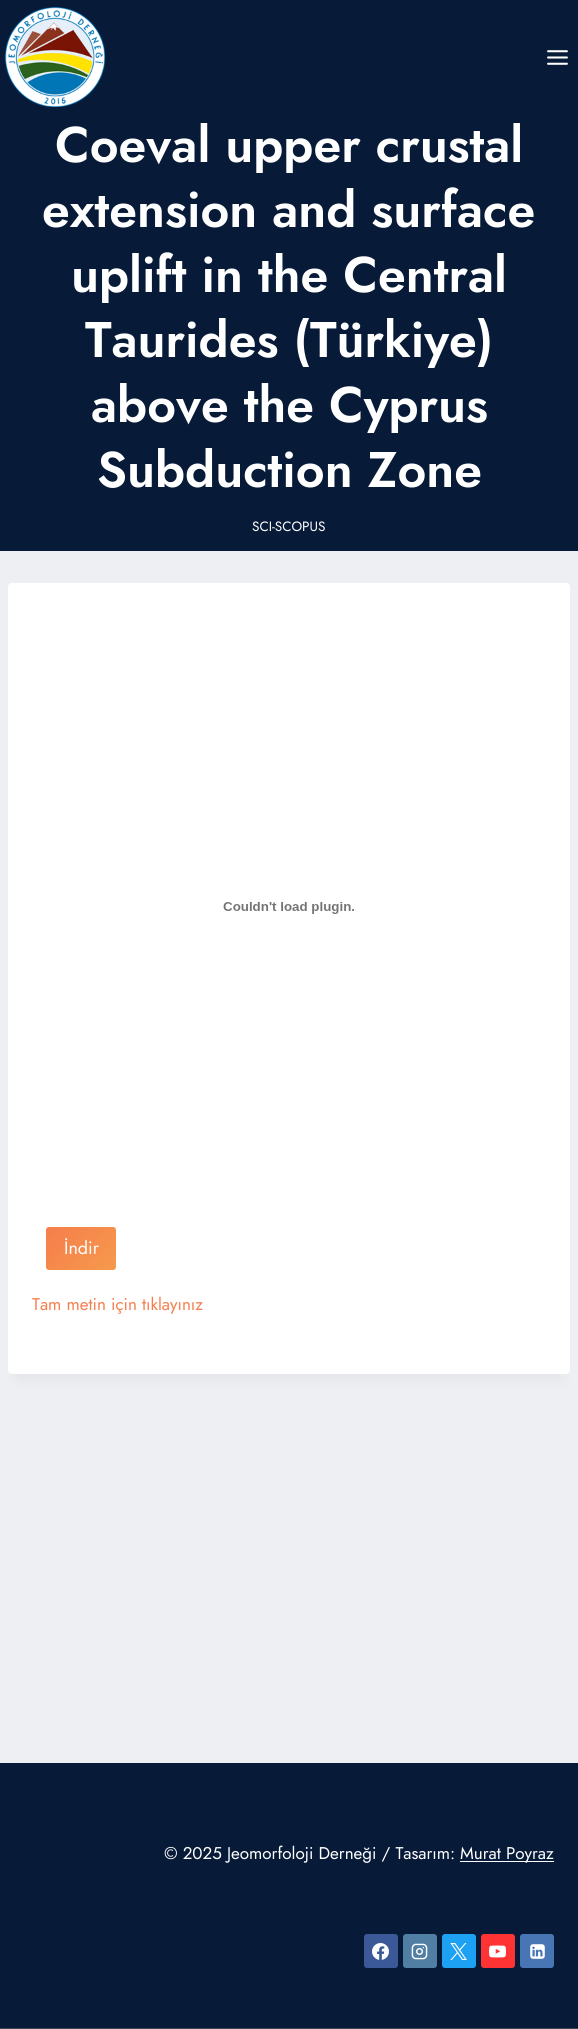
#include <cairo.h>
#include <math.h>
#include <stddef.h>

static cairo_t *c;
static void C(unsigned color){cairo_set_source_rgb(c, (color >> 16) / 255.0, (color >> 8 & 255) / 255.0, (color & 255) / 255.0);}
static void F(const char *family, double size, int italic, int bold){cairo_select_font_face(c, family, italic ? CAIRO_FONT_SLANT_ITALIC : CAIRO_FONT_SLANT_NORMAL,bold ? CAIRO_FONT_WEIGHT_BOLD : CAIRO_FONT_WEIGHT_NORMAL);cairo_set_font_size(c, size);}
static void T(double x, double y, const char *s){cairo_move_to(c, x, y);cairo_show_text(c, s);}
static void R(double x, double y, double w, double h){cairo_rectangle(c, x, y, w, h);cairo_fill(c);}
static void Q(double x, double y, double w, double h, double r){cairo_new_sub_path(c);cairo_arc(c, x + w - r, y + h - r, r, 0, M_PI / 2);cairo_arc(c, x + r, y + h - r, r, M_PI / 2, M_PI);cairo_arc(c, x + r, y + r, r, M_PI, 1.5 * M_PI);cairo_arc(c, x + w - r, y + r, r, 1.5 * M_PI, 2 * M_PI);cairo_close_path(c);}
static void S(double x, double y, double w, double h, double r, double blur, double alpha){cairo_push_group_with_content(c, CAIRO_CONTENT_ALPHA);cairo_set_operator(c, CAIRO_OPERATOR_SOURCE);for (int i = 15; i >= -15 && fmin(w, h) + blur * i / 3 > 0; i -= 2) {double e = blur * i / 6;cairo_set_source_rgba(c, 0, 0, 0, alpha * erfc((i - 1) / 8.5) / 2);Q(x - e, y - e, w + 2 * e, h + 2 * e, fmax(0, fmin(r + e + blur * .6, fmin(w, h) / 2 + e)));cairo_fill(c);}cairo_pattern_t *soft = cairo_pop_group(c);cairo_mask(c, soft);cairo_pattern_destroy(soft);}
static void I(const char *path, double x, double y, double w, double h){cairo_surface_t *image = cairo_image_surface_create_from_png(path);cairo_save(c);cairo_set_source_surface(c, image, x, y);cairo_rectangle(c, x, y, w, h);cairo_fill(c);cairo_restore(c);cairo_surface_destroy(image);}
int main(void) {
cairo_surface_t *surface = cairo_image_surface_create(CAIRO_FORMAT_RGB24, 578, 2029);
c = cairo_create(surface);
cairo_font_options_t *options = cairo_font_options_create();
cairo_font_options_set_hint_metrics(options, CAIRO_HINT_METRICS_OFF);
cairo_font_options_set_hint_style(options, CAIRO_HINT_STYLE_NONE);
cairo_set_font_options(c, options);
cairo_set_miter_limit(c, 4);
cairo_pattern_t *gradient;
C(0xedeff3);
cairo_paint(c);
C(0x071b38);
R(0,0,578,551);
I("1.png",5,7,100,100);
I("2.png",547,50,21,15);
F("Jost SemiBold",50,0,0);
C(0xffffff);
T(55,162,"Coeval upper crustal");
T(42,227,"extension and surface");
T(71,292,"uplift in the Central");
T(85,357,"Taurides (Türkiye)");
T(91,422,"above the Cyprus");
T(97,487,"Subduction Zone");
F("Jost",13.5,0,0);
T(252,531,"SCI-SCOPUS");
C(0x000000);
S(18,608,542,771,0,7.5,.05);
C(0xffffff);
Q(8,583,562,791,4);
cairo_fill(c);
I("3.png",223,902,131,12);
gradient = cairo_pattern_create_linear(53,1220,109,1277);
cairo_pattern_add_color_stop_rgba(gradient,0,0.965,0.49,0.298,1);
cairo_pattern_add_color_stop_rgba(gradient,1,0.965,0.604,0.298,1);
cairo_set_source(c,gradient);
cairo_pattern_destroy(gradient);
Q(46,1227,70,43,3);
cairo_fill(c);
F("Jost",18,0,0);
C(0xffffff);
T(64,1254,"İndir");
F("Jost",17,0,0);
C(0xf67d4c);
T(32,1310,"Tam metin için tıklayınız");
C(0x071b38);
R(0,1763,578,265);
C(0x374352);
R(0,2028,578,1);
C(0xffffff);
T(164,1859,"© 2025 Jeomorfoloji Derneği / Tasarım:");
R(460,1861,94,1);
T(460,1859,"Murat Poyraz");
C(0x3b5998);
Q(364,1934,34,34,3);
cairo_fill(c);
I("4.png",372,1943,17,17);
C(0x517fa4);
Q(403,1934,34,34,3);
cairo_fill(c);
I("5.png",411,1943,17,17);
C(0x1da1f2);
Q(442,1934,34,34,3);
cairo_fill(c);
I("6.png",450,1943,17,17);
C(0xff3333);
Q(481,1934,34,34,3);
cairo_fill(c);
I("7.png",489,1945,17,13);
C(0x4875b4);
Q(520,1934,34,34,3);
cairo_fill(c);
I("8.png",530,1944,15,15);
cairo_surface_write_to_png(surface, "o.png");
cairo_font_options_destroy(options);
cairo_destroy(c);
cairo_surface_destroy(surface);
return 0;
}
